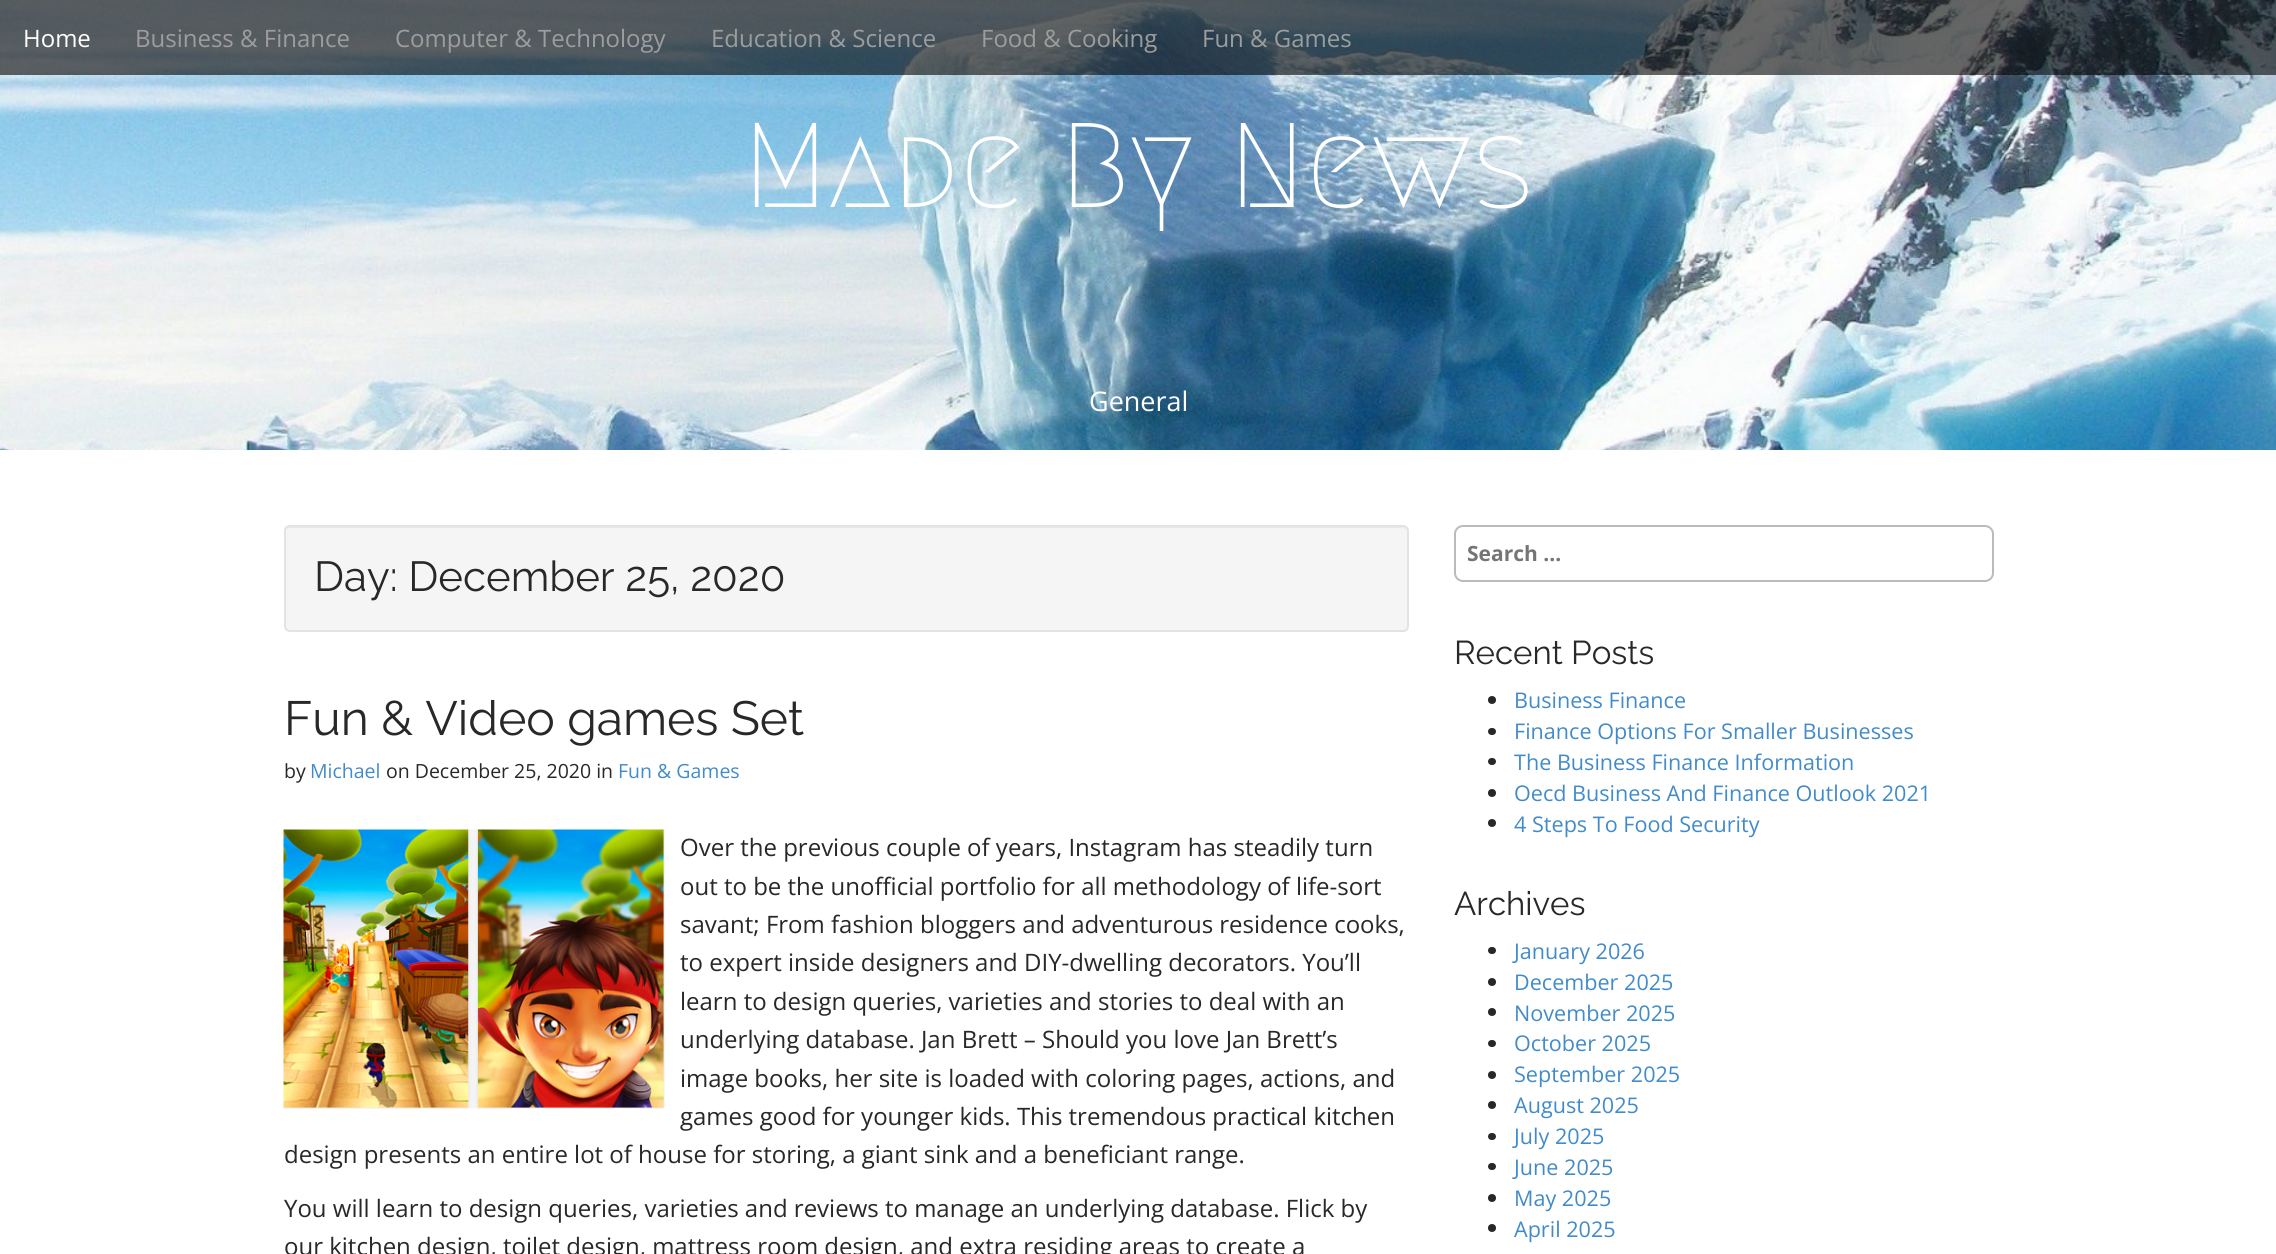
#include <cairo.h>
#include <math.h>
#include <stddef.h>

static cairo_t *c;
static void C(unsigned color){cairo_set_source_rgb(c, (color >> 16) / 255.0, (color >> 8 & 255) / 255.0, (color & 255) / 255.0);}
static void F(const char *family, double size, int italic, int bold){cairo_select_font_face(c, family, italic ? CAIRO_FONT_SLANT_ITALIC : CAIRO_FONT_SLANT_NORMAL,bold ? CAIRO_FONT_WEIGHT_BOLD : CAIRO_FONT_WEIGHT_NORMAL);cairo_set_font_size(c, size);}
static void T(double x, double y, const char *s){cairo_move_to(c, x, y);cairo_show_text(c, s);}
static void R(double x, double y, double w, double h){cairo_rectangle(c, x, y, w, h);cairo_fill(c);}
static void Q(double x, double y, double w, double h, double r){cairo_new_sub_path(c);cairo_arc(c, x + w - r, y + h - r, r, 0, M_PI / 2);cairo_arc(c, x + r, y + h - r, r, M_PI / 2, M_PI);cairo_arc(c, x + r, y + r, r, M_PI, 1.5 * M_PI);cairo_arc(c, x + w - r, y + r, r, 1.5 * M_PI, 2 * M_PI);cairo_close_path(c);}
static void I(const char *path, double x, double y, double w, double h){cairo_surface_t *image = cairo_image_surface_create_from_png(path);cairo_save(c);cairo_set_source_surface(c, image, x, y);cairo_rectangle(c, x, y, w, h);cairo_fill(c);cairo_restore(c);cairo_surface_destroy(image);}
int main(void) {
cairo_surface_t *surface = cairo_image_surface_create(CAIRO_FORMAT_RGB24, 2276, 1254);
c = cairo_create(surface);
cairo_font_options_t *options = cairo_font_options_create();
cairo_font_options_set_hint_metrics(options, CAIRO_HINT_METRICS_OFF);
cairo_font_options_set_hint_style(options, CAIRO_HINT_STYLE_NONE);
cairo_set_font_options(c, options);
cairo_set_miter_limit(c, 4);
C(0xffffff);
cairo_paint(c);
I("1.png",0,0,2276,450);
cairo_set_source_rgba(c,0,0,0,0.6);
R(0,0,2276,75);
F("Open Sans",24,0,0);
C(0xffffff);
T(23,47,"Home");
C(0x9d9d9d);
T(135,47,"Business & Finance");
T(395,47,"Computer & Technology");
T(711,47,"Education & Science");
T(981,47,"Food & Cooking");
T(1202,47,"Fun & Games");
F("Megrim Medium",120,0,0);
C(0xffffff);
T(743,207,"Made By News");
F("Open Sans",27,0,0);
T(1089,411,"General");
C(0xf5f5f5);
Q(284,525,1125,107,6);
cairo_fill(c);
C(0xe9e9e9);
cairo_new_path(c);
cairo_move_to(c,290,528);
cairo_line_to(c,1402,528);
cairo_curve_to(c,1405,528,1407,530,1407,532);
cairo_curve_to(c,1407,529,1405,527,1402,527);
cairo_line_to(c,290,527);
cairo_curve_to(c,287,527,285,529,285,532);
cairo_curve_to(c,285,530,287,528,290,528);
cairo_close_path(c);
cairo_fill(c);
Q(285,526,1123,105,5);
C(0xe3e3e3);
cairo_stroke(c);
F("Raleway Thin",42,0,0);
C(0x282828);
T(314,591,"Day: December 25, 2020");
F("Raleway Thin",48,0,0);
T(284,735,"Fun & Video games Set");
F("Open Sans",19.5,0,0);
T(284,778,"by");
C(0x428bca);
T(310,778,"Michael");
C(0x282828);
T(386,778,"on December 25, 2020 in");
C(0x428bca);
T(618,778,"Fun & Games");
I("2.png",283,829,382,280);
F("Open Sans",24,0,0);
C(0x282828);
T(680,856,"Over the previous couple of years, Instagram has steadily turn");
T(680,895,"out to be the unofficial portfolio for all methodology of life-sort");
T(680,933,"savant; From fashion bloggers and adventurous residence cooks,");
T(680,971,"to expert inside designers and DIY-dwelling decorators. You’ll");
T(680,1010,"learn to design queries, varieties and stories to deal with an");
T(680,1048,"underlying database. Jan Brett – Should you love Jan Brett’s");
T(680,1087,"image books, her site is loaded with coloring pages, actions, and");
T(680,1125,"games good for younger kids. This tremendous practical kitchen");
T(284,1163,"design presents an entire lot of house for storing, a giant sink and a beneficiant range.");
T(284,1217,"You will learn to design queries, varieties and reviews to manage an underlying database. Flick by");
T(284,1255,"our kitchen design, toilet design, mattress room design, and extra residing areas to create a");
Q(1455,526,538,55,8);
C(0xbbbbbb);
cairo_stroke(c);
F("Open Sans",21,0,1);
C(0x757575);
T(1467,561,"Search …");
F("Raleway Thin",33,0,0);
C(0x282828);
T(1454,664,"Recent Posts");
cairo_new_path(c);
cairo_arc(c,1492,700,4,0,2 * M_PI);
cairo_fill(c);
F("Open Sans",21.6,0,0);
C(0x428bca);
T(1514,708,"Business Finance");
C(0x282828);
Q(1488,728,8,7,3.5);
cairo_fill(c);
C(0x428bca);
T(1514,739,"Finance Options For Smaller Businesses");
C(0x282828);
Q(1488,758,8,7,3.5);
cairo_fill(c);
C(0x428bca);
T(1514,770,"The Business Finance Information");
C(0x282828);
cairo_new_path(c);
cairo_arc(c,1492,793,4,0,2 * M_PI);
cairo_fill(c);
C(0x428bca);
T(1514,801,"Oecd Business And Finance Outlook 2021");
C(0x282828);
cairo_new_path(c);
cairo_arc(c,1492,823,4,0,2 * M_PI);
cairo_fill(c);
C(0x428bca);
T(1514,832,"4 Steps To Food Security");
F("Raleway Thin",33,0,0);
C(0x282828);
T(1454,915,"Archives");
Q(1488,947,8,7,3.5);
cairo_fill(c);
F("Open Sans",21.6,0,0);
C(0x428bca);
T(1514,959,"January 2026");
C(0x282828);
cairo_new_path(c);
cairo_arc(c,1492,982,4,0,2 * M_PI);
cairo_fill(c);
C(0x428bca);
T(1514,990,"December 2025");
C(0x282828);
cairo_new_path(c);
cairo_arc(c,1492,1012,4,0,2 * M_PI);
cairo_fill(c);
C(0x428bca);
T(1514,1021,"November 2025");
C(0x282828);
Q(1488,1040,8,7,3.5);
cairo_fill(c);
C(0x428bca);
T(1514,1051,"October 2025");
C(0x282828);
cairo_new_path(c);
cairo_arc(c,1492,1075,4,0,2 * M_PI);
cairo_fill(c);
C(0x428bca);
T(1514,1082,"September 2025");
C(0x282828);
cairo_new_path(c);
cairo_arc(c,1492,1105,4,0,2 * M_PI);
cairo_fill(c);
C(0x428bca);
T(1514,1113,"August 2025");
C(0x282828);
Q(1488,1133,8,7,3.5);
cairo_fill(c);
C(0x428bca);
T(1514,1144,"July 2025");
C(0x282828);
Q(1488,1163,8,7,3.5);
cairo_fill(c);
C(0x428bca);
T(1514,1175,"June 2025");
C(0x282828);
cairo_new_path(c);
cairo_arc(c,1492,1198,4,0,2 * M_PI);
cairo_fill(c);
C(0x428bca);
T(1514,1206,"May 2025");
C(0x282828);
cairo_new_path(c);
cairo_arc(c,1492,1228,4,0,2 * M_PI);
cairo_fill(c);
C(0x428bca);
T(1514,1237,"April 2025");
cairo_surface_write_to_png(surface, "o.png");
cairo_font_options_destroy(options);
cairo_destroy(c);
cairo_surface_destroy(surface);
return 0;
}
